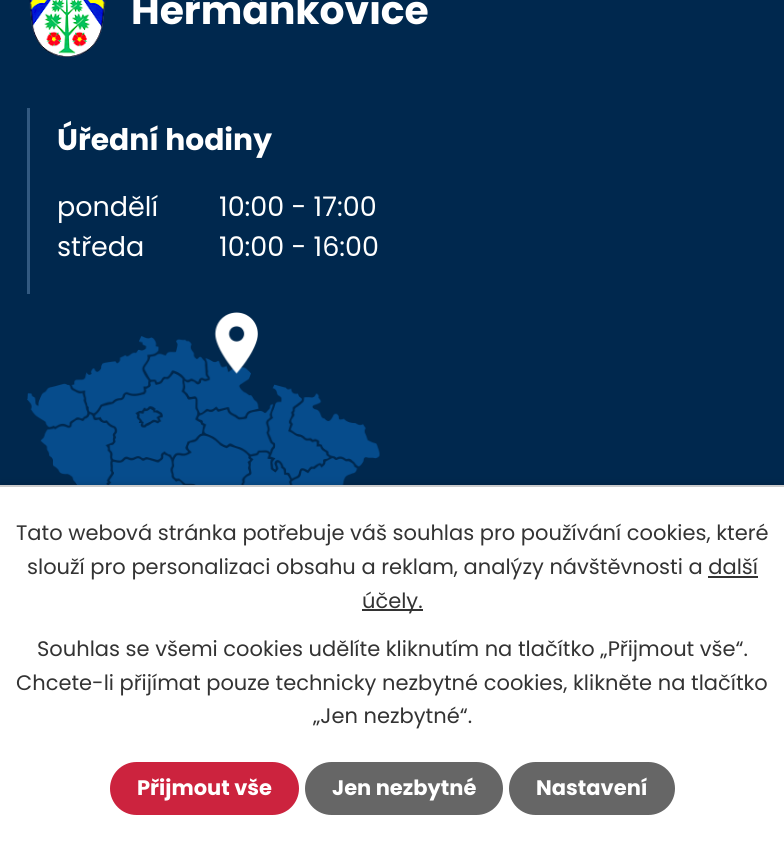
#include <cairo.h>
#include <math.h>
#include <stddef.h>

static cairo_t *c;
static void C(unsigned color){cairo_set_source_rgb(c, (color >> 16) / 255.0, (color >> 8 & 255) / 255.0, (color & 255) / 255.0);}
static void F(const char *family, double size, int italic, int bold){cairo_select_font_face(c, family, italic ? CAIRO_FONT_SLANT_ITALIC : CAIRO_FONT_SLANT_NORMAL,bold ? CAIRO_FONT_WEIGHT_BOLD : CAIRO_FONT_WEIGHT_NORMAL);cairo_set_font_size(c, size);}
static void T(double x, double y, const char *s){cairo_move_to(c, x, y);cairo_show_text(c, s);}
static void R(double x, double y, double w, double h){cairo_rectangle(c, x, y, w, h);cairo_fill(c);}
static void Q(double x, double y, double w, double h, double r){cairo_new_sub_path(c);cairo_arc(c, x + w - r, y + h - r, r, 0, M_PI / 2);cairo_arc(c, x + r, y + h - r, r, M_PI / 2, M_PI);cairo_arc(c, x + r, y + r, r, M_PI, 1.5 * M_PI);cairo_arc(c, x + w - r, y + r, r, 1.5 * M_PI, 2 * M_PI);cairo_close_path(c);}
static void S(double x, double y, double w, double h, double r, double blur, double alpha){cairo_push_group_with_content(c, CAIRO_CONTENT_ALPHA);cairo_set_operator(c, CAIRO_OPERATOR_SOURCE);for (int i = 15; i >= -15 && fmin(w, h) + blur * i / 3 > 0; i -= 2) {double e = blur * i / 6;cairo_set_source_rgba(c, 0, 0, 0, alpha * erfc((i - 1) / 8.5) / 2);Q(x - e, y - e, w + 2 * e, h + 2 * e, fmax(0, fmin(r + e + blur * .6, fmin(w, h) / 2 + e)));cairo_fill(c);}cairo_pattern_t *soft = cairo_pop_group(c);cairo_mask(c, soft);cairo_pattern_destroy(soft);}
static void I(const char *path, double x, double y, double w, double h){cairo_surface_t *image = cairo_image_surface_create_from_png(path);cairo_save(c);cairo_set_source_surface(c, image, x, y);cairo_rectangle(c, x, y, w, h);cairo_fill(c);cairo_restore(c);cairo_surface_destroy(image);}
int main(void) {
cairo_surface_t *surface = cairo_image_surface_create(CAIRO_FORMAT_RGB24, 784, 843);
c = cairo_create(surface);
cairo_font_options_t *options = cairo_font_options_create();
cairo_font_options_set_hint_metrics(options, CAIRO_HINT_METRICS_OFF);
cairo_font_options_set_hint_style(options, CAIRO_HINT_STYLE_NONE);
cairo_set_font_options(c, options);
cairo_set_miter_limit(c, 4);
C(0x00284e);
cairo_paint(c);
I("1.png",29,0,77,57);
F("Poppins",39.25,0,1);
C(0xffffff);
T(131,24,"Heřmánkovice");
C(0x325980);
R(27,108,3,186);
F("Poppins",29.75,0,1);
C(0xffffff);
T(57,150,"Úřední hodiny");
F("Poppins",27,0,0);
T(57,216,"pondělí");
T(219,216,"10:00 - 17:00");
T(57,256,"středa");
T(219,256,"10:00 - 16:00");
I("3.png",27,336,353,149);
I("2.png",214,312,44,62);
C(0x000000);
S(0,485,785,358,0,4,.2);
C(0xffffff);
R(0,487,784,356);
C(0xcccccc);
R(0,485,784,2);
F("Poppins",21,0,0);
C(0x333333);
T(16,540,"Tato webová stránka potřebuje váš souhlas pro používání cookies, které");
T(27,574,"slouží pro personalizaci obsahu a reklam, analýzy návštěvnosti a další");
R(362,609,61,2);
T(362,608,"účely.");
R(708,576,50,2);
T(37,656,"Souhlas se všemi cookies udělíte kliknutím na tlačítko „Přijmout vše“.");
T(16,690,"Chcete-li přijímat pouze technicky nezbytné cookies, klikněte na tlačítko");
T(313,723,"„Jen nezbytné“.");
C(0xcc233e);
Q(110,762,189,53,26.5);
cairo_fill(c);
F("Poppins",21,0,1);
C(0xffffff);
T(137,795,"Přijmout vše");
C(0x666666);
Q(305,762,198,53,26.5);
cairo_fill(c);
C(0xffffff);
T(332,795,"Jen nezbytné");
C(0x666666);
Q(509,762,166,53,26.5);
cairo_fill(c);
C(0xffffff);
T(536,795,"Nastavení");
cairo_surface_write_to_png(surface, "o.png");
cairo_font_options_destroy(options);
cairo_destroy(c);
cairo_surface_destroy(surface);
return 0;
}
